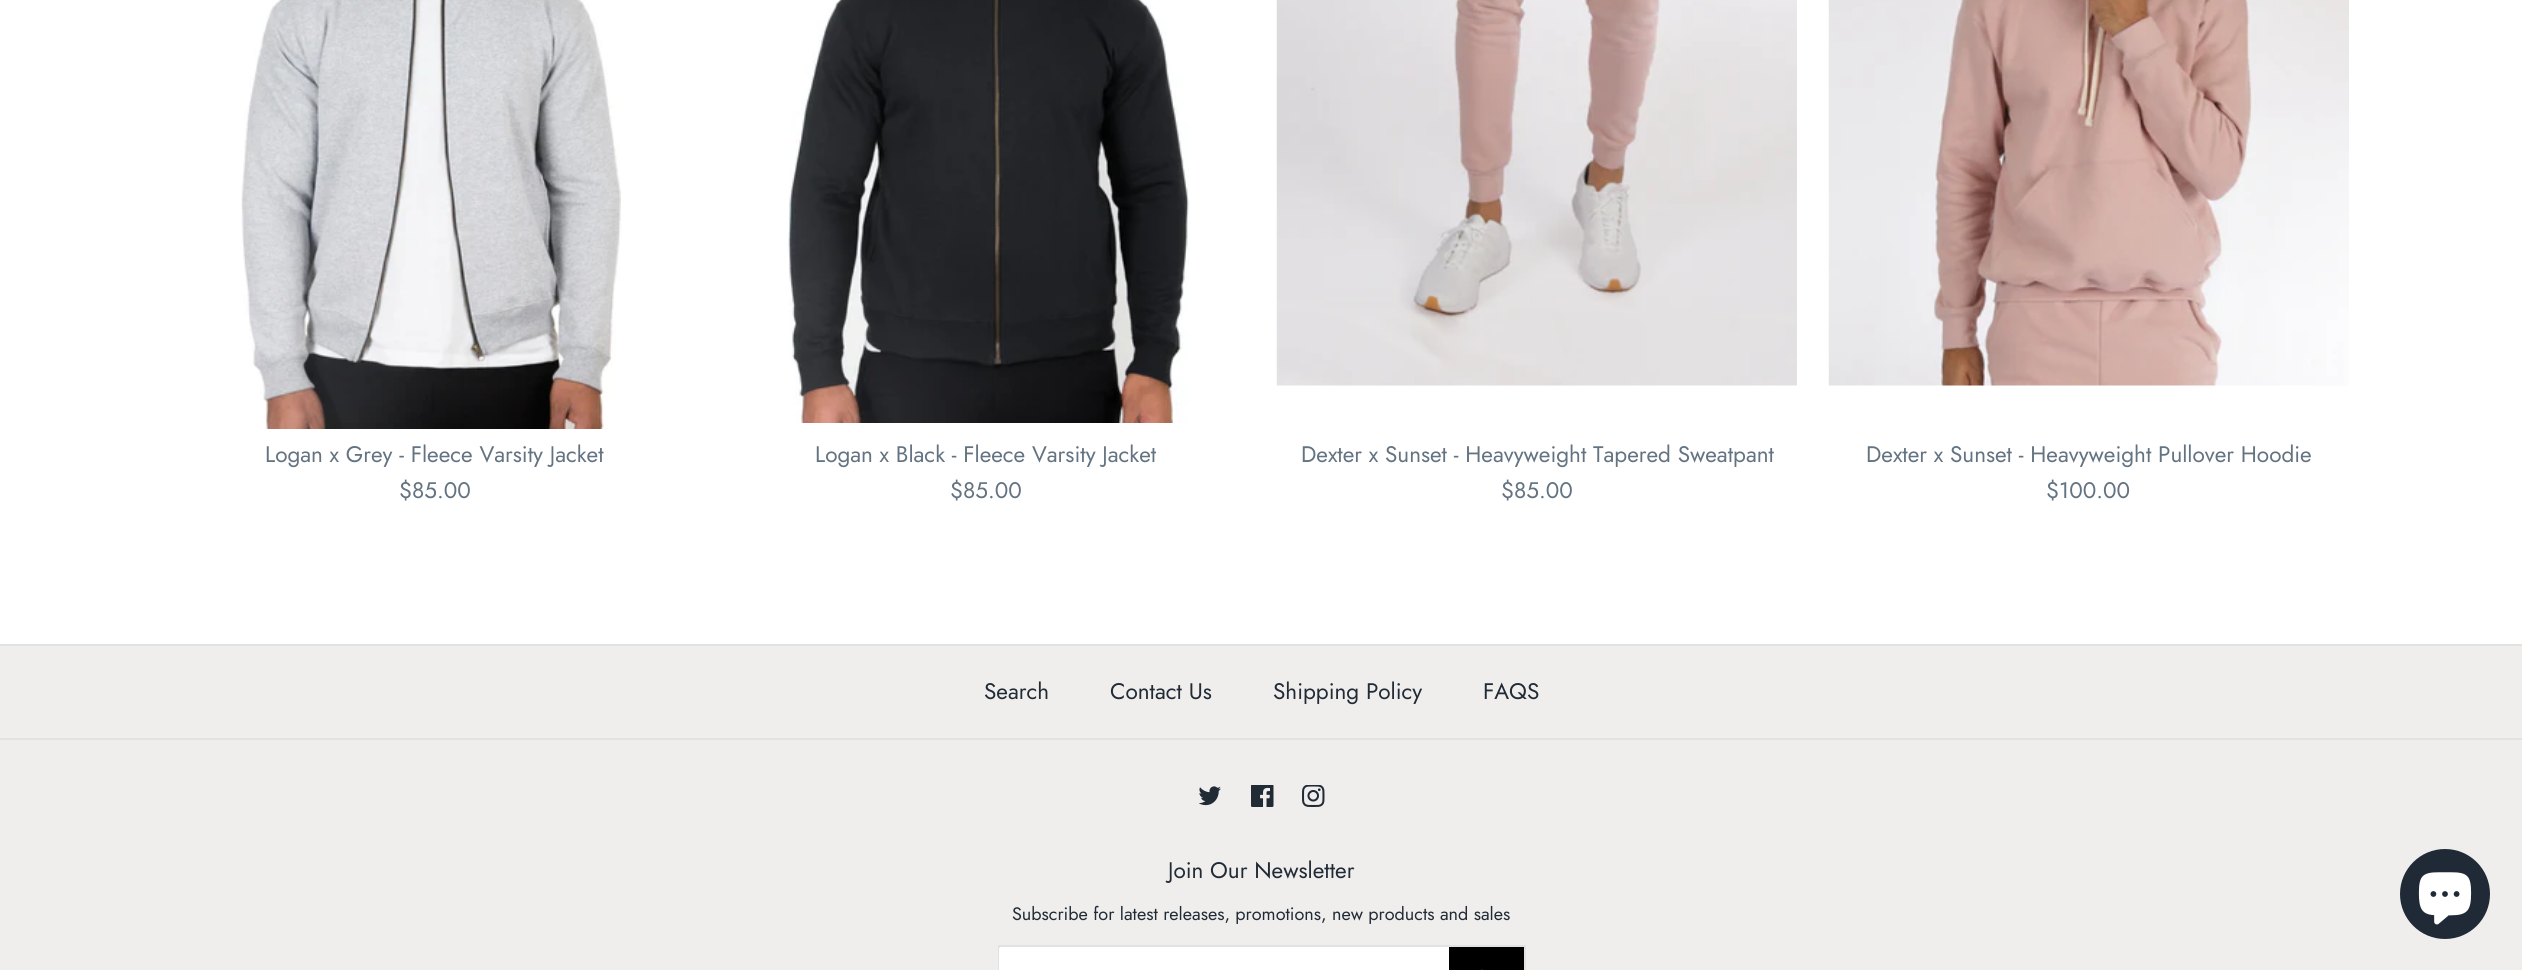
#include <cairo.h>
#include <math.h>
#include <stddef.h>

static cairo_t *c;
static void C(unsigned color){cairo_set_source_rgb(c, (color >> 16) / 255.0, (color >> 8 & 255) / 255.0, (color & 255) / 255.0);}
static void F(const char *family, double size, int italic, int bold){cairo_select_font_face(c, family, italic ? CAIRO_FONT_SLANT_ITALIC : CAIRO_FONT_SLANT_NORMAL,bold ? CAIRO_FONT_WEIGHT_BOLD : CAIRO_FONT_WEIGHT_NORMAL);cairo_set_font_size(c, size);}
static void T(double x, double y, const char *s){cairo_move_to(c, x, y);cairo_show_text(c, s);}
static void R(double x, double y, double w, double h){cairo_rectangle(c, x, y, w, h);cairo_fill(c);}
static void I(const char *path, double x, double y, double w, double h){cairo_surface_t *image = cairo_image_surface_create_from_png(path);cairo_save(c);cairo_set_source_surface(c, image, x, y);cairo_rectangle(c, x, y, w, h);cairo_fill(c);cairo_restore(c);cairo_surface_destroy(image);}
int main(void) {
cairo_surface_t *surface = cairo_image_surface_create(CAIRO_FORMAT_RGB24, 2522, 970);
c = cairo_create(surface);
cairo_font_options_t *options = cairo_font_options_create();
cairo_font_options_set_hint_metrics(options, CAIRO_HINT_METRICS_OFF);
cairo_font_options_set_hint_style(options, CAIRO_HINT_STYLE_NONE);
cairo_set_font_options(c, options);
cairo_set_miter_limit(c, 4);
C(0xffffff);
cairo_paint(c);
I("1.png",241,0,381,429);
F("Jost",22.5,0,0);
C(0x637381);
T(265,462,"Logan x Grey - Fleece Varsity Jacket");
T(399,498,"$85.00");
I("2.png",788,0,401,423);
T(815,462,"Logan x Black - Fleece Varsity Jacket");
T(950,498,"$85.00");
I("3.png",1276,0,521,386);
T(1301,462,"Dexter x Sunset - Heavyweight Tapered Sweatpant");
T(1501,498,"$85.00");
I("4.png",1828,0,521,386);
T(1866,462,"Dexter x Sunset - Heavyweight Pullover Hoodie");
T(2046,498,"$100.00");
C(0xf0eeed);
R(0,646,2522,324);
C(0xe2e2e2);
R(0,644,2522,2);
R(0,738,2522,2);
C(0x212b36);
T(984,699,"Search");
T(1110,699,"Contact Us");
T(1273,699,"Shipping Policy");
T(1483,699,"FAQS");
I("5.png",1199,786,22,20);
I("6.png",1251,785,23,22);
I("7.png",1302,785,23,22);
T(1168,878,"Join Our Newsletter");
F("Jost",18,0,0);
T(1012,920,"Subscribe for latest releases, promotions, new products and sales");
C(0xffffff);
R(1000,947,449,1);
cairo_rectangle(c,999,946,526,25);
C(0xe2e2e2);
cairo_stroke(c);
C(0xffffff);
R(999,948,450,22);
C(0x000000);
R(1449,947,75,23);
cairo_new_path(c);
cairo_move_to(c,1482,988.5);
cairo_line_to(c,1491,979.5);
cairo_line_to(c,1482,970.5);
C(0xffffff);
cairo_set_line_width(c,1.5);
cairo_set_line_cap(c,CAIRO_LINE_CAP_ROUND);
cairo_set_line_join(c,CAIRO_LINE_JOIN_ROUND);
cairo_stroke(c);
C(0x202a36);
cairo_arc(c,2445,894,45,0,2 * M_PI);
cairo_fill(c);
I("8.png",2418,872,54,53);
cairo_surface_write_to_png(surface, "o.png");
cairo_font_options_destroy(options);
cairo_destroy(c);
cairo_surface_destroy(surface);
return 0;
}
